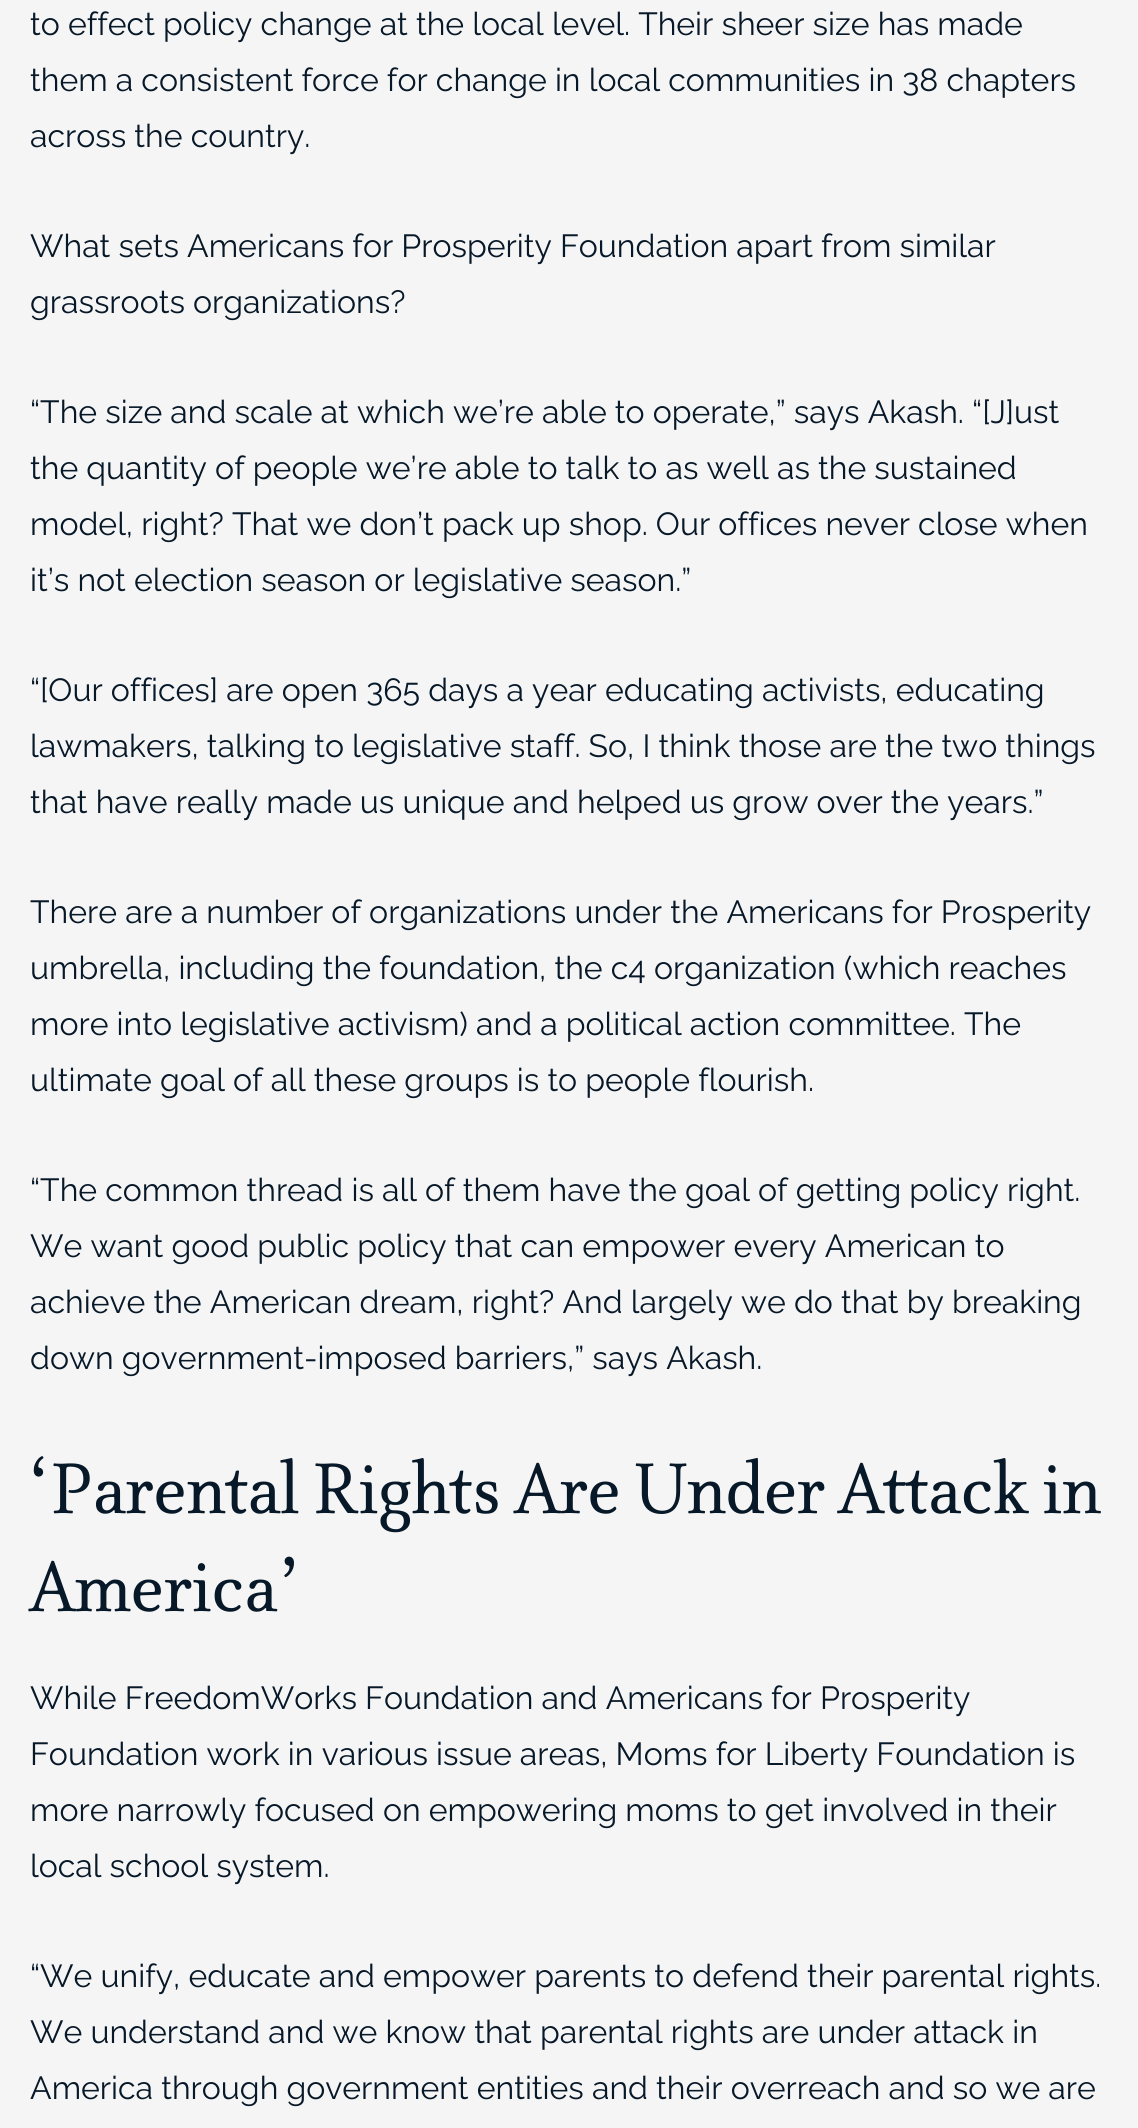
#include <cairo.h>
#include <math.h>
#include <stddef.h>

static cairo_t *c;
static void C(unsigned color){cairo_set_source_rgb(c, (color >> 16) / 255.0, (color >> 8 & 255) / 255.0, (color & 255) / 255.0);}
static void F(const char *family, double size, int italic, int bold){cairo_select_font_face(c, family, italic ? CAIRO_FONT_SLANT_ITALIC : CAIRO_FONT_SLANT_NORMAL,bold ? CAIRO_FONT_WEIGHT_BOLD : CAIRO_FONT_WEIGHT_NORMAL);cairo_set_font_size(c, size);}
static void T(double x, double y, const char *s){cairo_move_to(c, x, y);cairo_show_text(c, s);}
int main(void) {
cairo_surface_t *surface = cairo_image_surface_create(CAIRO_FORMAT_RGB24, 1138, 2128);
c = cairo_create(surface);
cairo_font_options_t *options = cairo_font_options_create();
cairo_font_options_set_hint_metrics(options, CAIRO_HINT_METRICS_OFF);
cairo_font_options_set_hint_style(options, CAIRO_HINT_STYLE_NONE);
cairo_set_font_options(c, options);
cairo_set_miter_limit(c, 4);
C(0xf5f5f5);
cairo_paint(c);
F("Raleway",32,0,0);
C(0x071828);
T(30,35,"to effect policy change at the local level. Their sheer size has made");
T(30,91,"them a consistent force for change in local communities in 38 chapters");
T(30,147,"across the country.");
T(30,257,"What sets Americans for Prosperity Foundation apart from similar");
T(30,313,"grassroots organizations?");
T(30,423,"“The size and scale at which we’re able to operate,” says Akash. “[J]ust");
T(30,479,"the quantity of people we’re able to talk to as well as the sustained");
T(30,535,"model, right? That we don’t pack up shop. Our offices never close when");
T(30,591,"it’s not election season or legislative season.”");
T(30,701,"“[Our offices] are open 365 days a year educating activists, educating");
T(30,757,"lawmakers, talking to legislative staff. So, I think those are the two things");
T(30,813,"that have really made us unique and helped us grow over the years.”");
T(30,923,"There are a number of organizations under the Americans for Prosperity");
T(30,979,"umbrella, including the foundation, the c4 organization (which reaches");
T(30,1035,"more into legislative activism) and a political action committee. The");
T(30,1091,"ultimate goal of all these groups is to people flourish.");
T(30,1201,"“The common thread is all of them have the goal of getting policy right.");
T(30,1257,"We want good public policy that can empower every American to");
T(30,1313,"achieve the American dream, right? And largely we do that by breaking");
T(30,1369,"down government-imposed barriers,” says Akash.");
F("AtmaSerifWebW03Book",82,0,0);
T(30,1513,"‘Parental Rights Are Under Attack in");
T(30,1611,"America’");
F("Raleway",32,0,0);
T(30,1709,"While FreedomWorks Foundation and Americans for Prosperity");
T(30,1765,"Foundation work in various issue areas, Moms for Liberty Foundation is");
T(30,1821,"more narrowly focused on empowering moms to get involved in their");
T(30,1877,"local school system.");
T(30,1987,"“We unify, educate and empower parents to defend their parental rights.");
T(30,2043,"We understand and we know that parental rights are under attack in");
T(30,2099,"America through government entities and their overreach and so we are");
cairo_surface_write_to_png(surface, "o.png");
cairo_font_options_destroy(options);
cairo_destroy(c);
cairo_surface_destroy(surface);
return 0;
}
